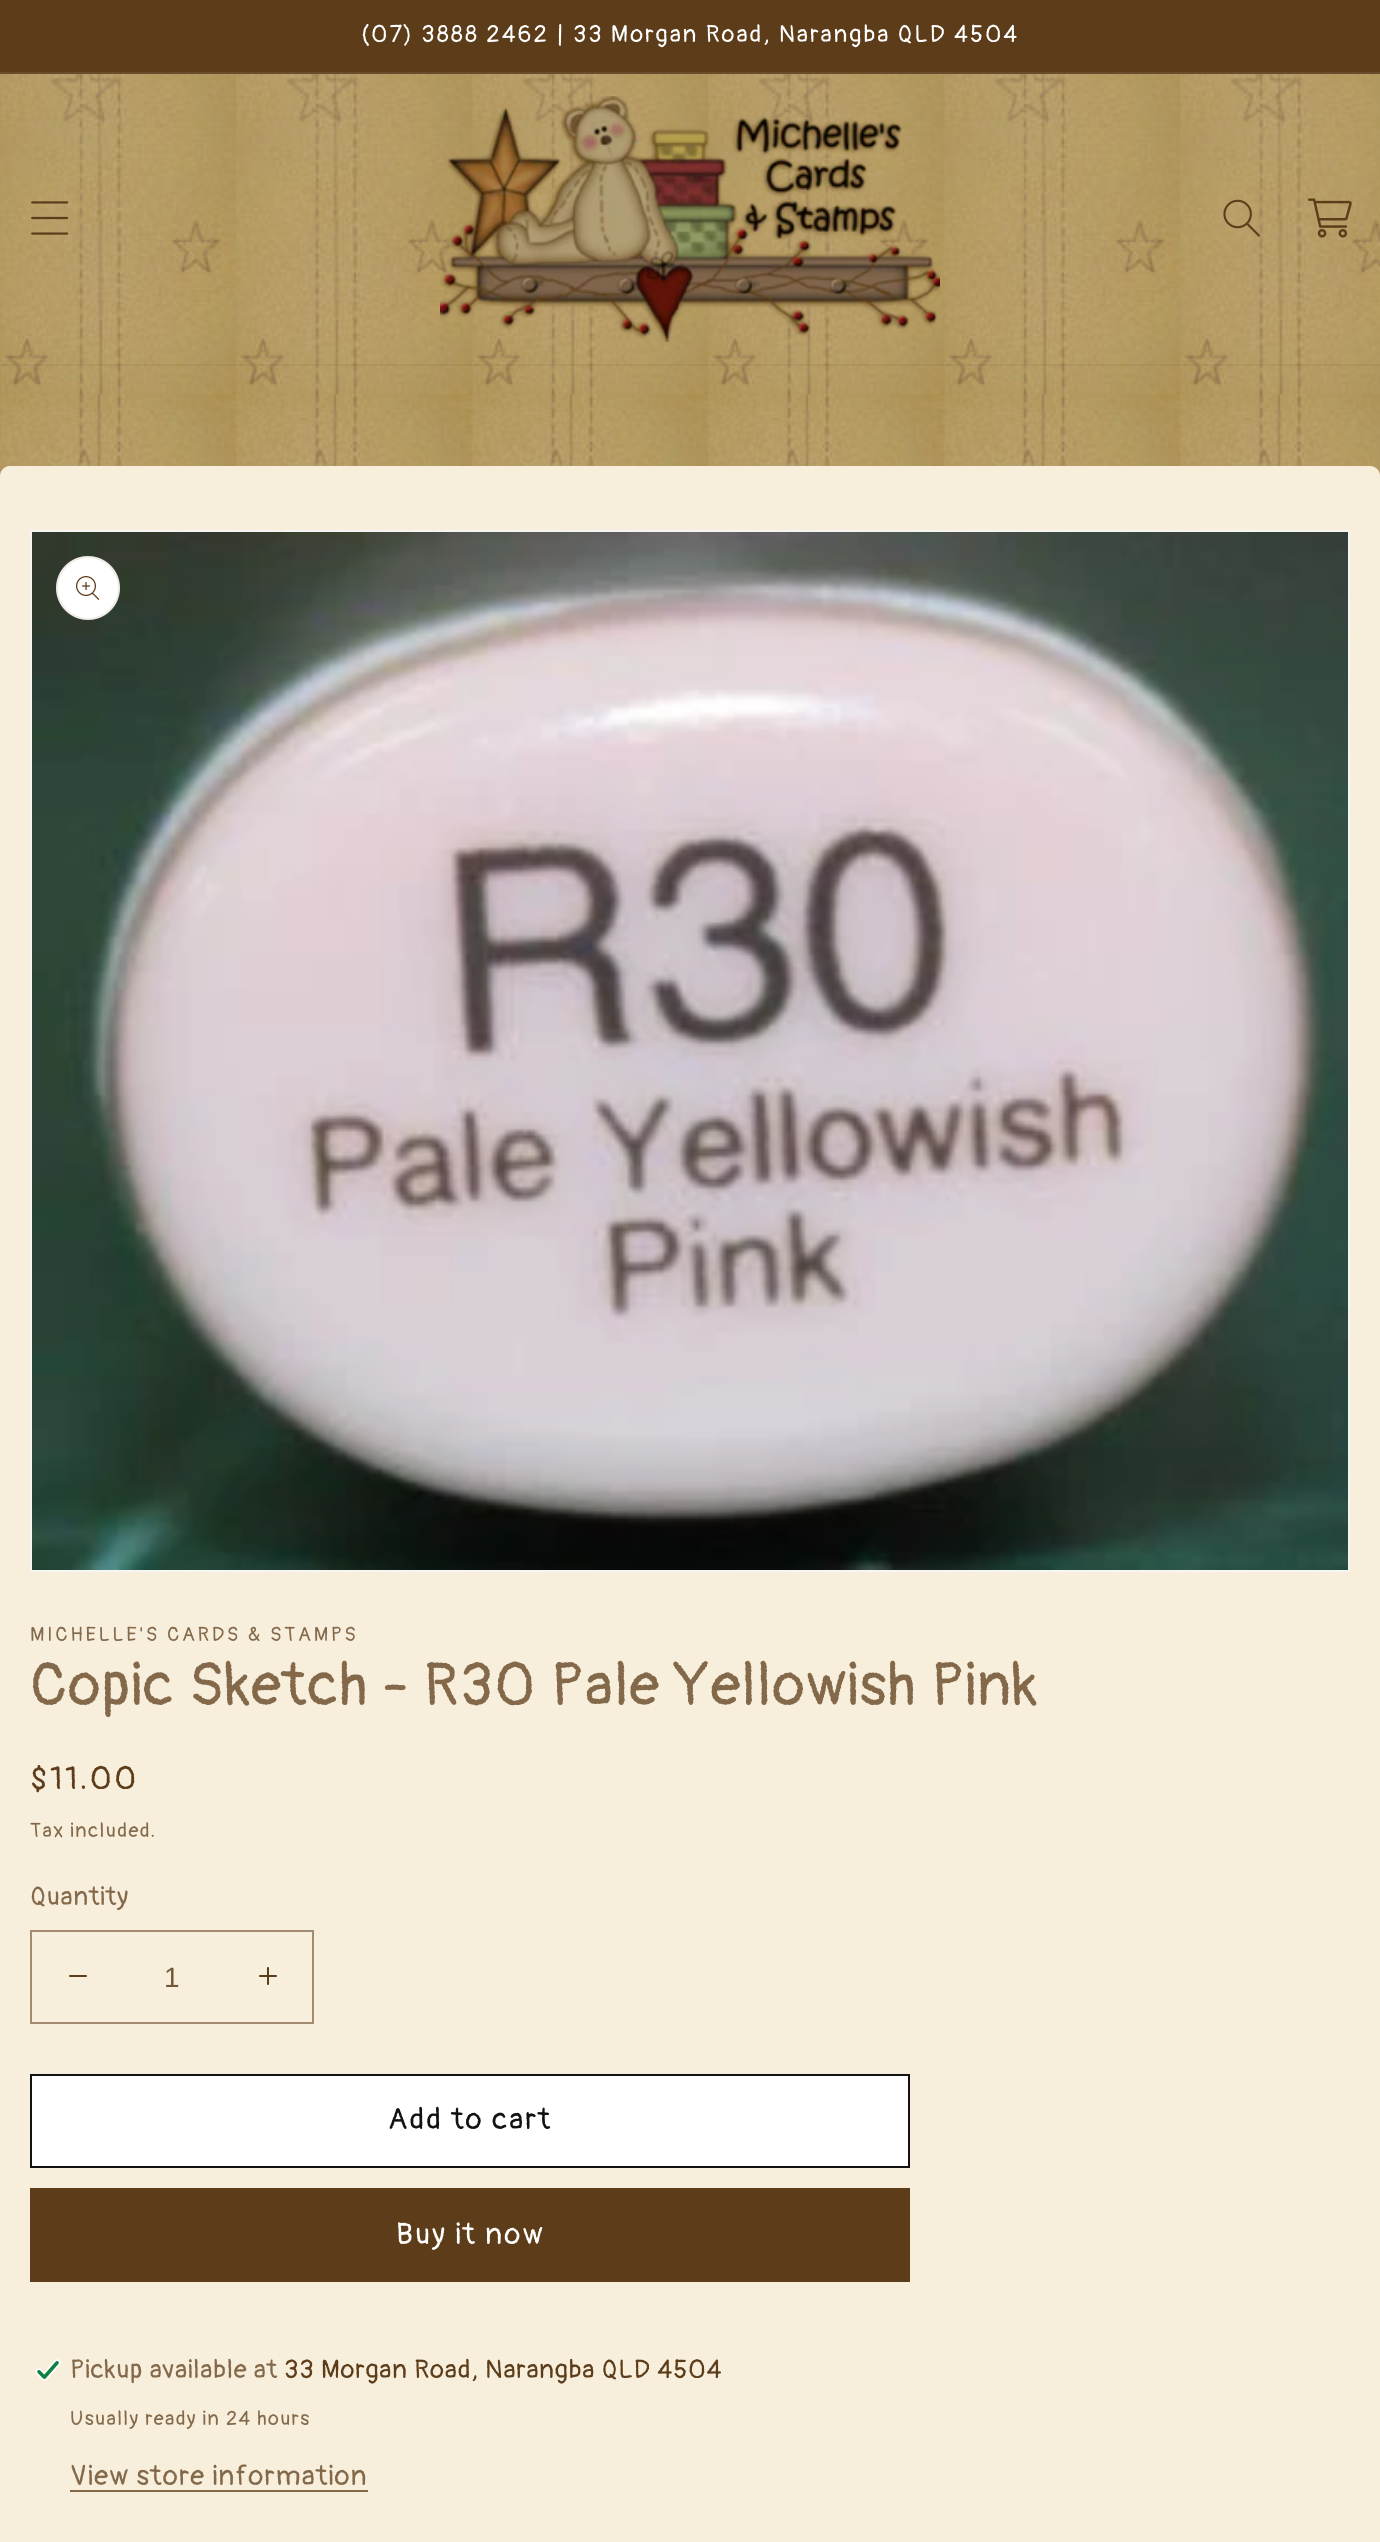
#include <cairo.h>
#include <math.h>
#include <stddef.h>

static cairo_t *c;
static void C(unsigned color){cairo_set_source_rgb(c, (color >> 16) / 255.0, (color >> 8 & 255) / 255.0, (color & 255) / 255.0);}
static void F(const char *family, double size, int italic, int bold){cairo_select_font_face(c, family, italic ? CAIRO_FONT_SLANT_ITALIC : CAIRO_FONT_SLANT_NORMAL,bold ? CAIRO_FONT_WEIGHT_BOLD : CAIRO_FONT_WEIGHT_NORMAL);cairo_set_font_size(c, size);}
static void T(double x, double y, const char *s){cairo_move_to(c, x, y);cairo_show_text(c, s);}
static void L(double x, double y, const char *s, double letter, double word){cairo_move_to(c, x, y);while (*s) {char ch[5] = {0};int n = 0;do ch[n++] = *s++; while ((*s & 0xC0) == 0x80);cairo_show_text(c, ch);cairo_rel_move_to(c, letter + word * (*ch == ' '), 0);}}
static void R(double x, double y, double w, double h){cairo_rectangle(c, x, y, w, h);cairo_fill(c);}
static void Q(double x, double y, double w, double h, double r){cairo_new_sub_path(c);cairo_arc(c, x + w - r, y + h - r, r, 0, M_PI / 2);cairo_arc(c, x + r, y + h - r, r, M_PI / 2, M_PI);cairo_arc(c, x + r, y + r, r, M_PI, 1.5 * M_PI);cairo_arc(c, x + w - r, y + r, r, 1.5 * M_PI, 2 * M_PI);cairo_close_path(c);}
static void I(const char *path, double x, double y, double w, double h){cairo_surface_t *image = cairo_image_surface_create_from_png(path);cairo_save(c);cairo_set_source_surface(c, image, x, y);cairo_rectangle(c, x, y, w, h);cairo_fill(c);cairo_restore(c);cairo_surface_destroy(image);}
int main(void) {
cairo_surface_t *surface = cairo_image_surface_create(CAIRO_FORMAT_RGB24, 1380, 2542);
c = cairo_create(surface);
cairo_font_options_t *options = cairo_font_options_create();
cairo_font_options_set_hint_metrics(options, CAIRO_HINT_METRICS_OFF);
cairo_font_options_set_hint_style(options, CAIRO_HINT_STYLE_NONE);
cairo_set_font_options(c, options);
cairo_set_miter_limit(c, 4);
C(0xffffff);
cairo_paint(c);
I("1.png",0,74,1380,402);
C(0x5c3c19);
R(0,0,1380,72);
C(0x694c2b);
R(0,72,1380,2);
F("Pangolin",24,0,0);
C(0xffffff);
L(361,42,"(07) 3888 2462 | 33 Morgan Road, Narangba QLD 4504",2,0);
cairo_set_source_rgba(c,0.361,0.235,0.098,0.08);
R(0,364,1380,2);
I("2.png",31,201,38,34);
I("3.png",440,96,500,246);
I("4.png",1223,199,37,38);
I("5.png",1308,198,44,40);
C(0xf7eedc);
Q(0,466,1380,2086,10);
cairo_fill(c);
cairo_rectangle(c,31,531,1318,1040);
C(0xf7f5f4);
cairo_stroke(c);
I("6.png",32,532,1316,1038);
C(0xffffff);
cairo_arc(c,88,588,32,0,2 * M_PI);
cairo_fill(c);
cairo_arc(c,88,588,31,0,2 * M_PI);
cairo_set_source_rgba(c,0.361,0.235,0.098,0.1);
cairo_stroke(c);
I("7.png",76,576,24,24);
F("Pangolin",20,0,0);
C(0x83694a);
L(30,1641,"MICHELLE'S CARDS & STAMPS",2.6,0);
F("Pangolin",60,0,0);
L(30,1705,"Copic Sketch - R30 Pale Yellowish Pink",1.2,0);
F("Pangolin",32,0,0);
C(0x5c3c19);
L(30,1789,"$11.00",2.6,0);
F("Pangolin",20,0,0);
C(0x83694a);
L(30,1837,"Tax included.",1.4,0);
F("Pangolin",26,0,0);
L(30,1905,"Quantity",.8,0);
I("8.png",69,1975,18,2);
I("9.png",259,1967,18,18);
cairo_rectangle(c,31,1931,282,92);
C(0xa28c71);
cairo_stroke(c);
F("Liberation Sans",28,0,0);
C(0x735736);
T(164,1987,"1");
C(0xffffff);
R(32,2076,876,90);
cairo_rectangle(c,31,2075,878,92);
C(0x121212);
cairo_stroke(c);
F("Pangolin",30,0,0);
L(388,2129,"Add to cart",2,0);
C(0x5c3c19);
R(30,2188,880,94);
C(0xffffff);
L(396,2244,"Buy it now",2,0);
I("10.png",35,2359,26,22);
F("Pangolin",26,0,0);
C(0x83694a);
L(70,2378,"Pickup available at",.8,0);
C(0x5c3c19);
L(284,2378,"33 Morgan Road, Narangba QLD 4504",.8,0);
F("Pangolin",20,0,0);
C(0x83694a);
L(70,2425,"Usually ready in 24 hours",1.4,0);
F("Pangolin",28,0,0);
L(70,2485,"View store information",1.2,0);
R(70,2490,298,2);
cairo_surface_write_to_png(surface, "o.png");
cairo_font_options_destroy(options);
cairo_destroy(c);
cairo_surface_destroy(surface);
return 0;
}
